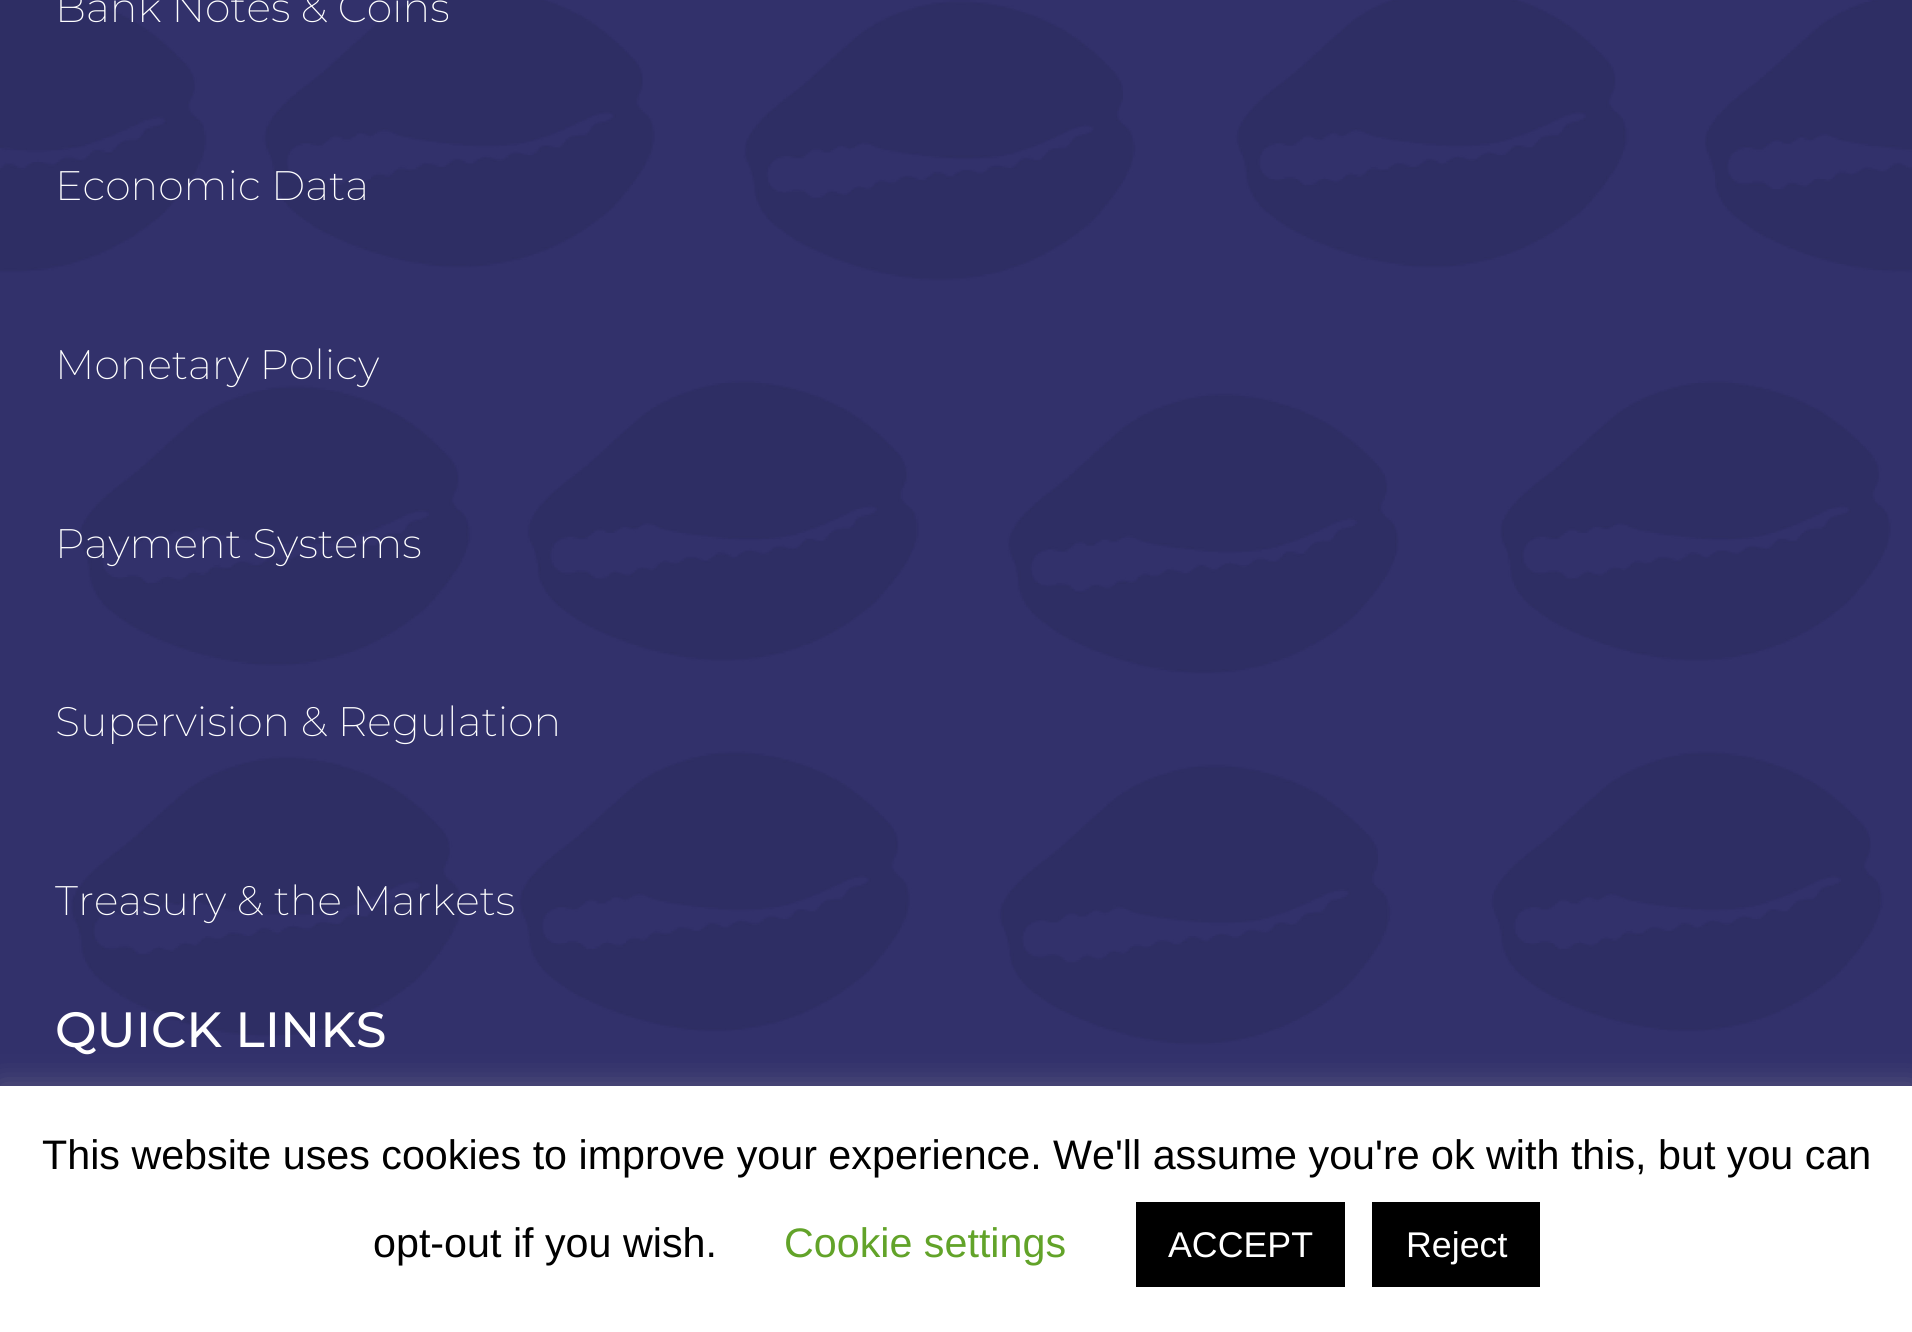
#include <cairo.h>
#include <math.h>
#include <stddef.h>

static cairo_t *c;
static void C(unsigned color){cairo_set_source_rgb(c, (color >> 16) / 255.0, (color >> 8 & 255) / 255.0, (color & 255) / 255.0);}
static void F(const char *family, double size, int italic, int bold){cairo_select_font_face(c, family, italic ? CAIRO_FONT_SLANT_ITALIC : CAIRO_FONT_SLANT_NORMAL,bold ? CAIRO_FONT_WEIGHT_BOLD : CAIRO_FONT_WEIGHT_NORMAL);cairo_set_font_size(c, size);}
static void T(double x, double y, const char *s){cairo_move_to(c, x, y);cairo_show_text(c, s);}
static void R(double x, double y, double w, double h){cairo_rectangle(c, x, y, w, h);cairo_fill(c);}
static void Q(double x, double y, double w, double h, double r){cairo_new_sub_path(c);cairo_arc(c, x + w - r, y + h - r, r, 0, M_PI / 2);cairo_arc(c, x + r, y + h - r, r, M_PI / 2, M_PI);cairo_arc(c, x + r, y + r, r, M_PI, 1.5 * M_PI);cairo_arc(c, x + w - r, y + r, r, 1.5 * M_PI, 2 * M_PI);cairo_close_path(c);}
static void S(double x, double y, double w, double h, double r, double blur, double alpha){cairo_push_group_with_content(c, CAIRO_CONTENT_ALPHA);cairo_set_operator(c, CAIRO_OPERATOR_SOURCE);for (int i = 15; i >= -15 && fmin(w, h) + blur * i / 3 > 0; i -= 2) {double e = blur * i / 6;cairo_set_source_rgba(c, 0, 0, 0, alpha * erfc((i - 1) / 8.5) / 2);Q(x - e, y - e, w + 2 * e, h + 2 * e, fmax(0, fmin(r + e + blur * .6, fmin(w, h) / 2 + e)));cairo_fill(c);}cairo_pattern_t *soft = cairo_pop_group(c);cairo_mask(c, soft);cairo_pattern_destroy(soft);}
static void I(const char *path, double x, double y, double w, double h){cairo_surface_t *image = cairo_image_surface_create_from_png(path);cairo_save(c);cairo_set_source_surface(c, image, x, y);cairo_rectangle(c, x, y, w, h);cairo_fill(c);cairo_restore(c);cairo_surface_destroy(image);}
int main(void) {
cairo_surface_t *surface = cairo_image_surface_create(CAIRO_FORMAT_RGB24, 1912, 1332);
c = cairo_create(surface);
cairo_font_options_t *options = cairo_font_options_create();
cairo_font_options_set_hint_metrics(options, CAIRO_HINT_METRICS_OFF);
cairo_font_options_set_hint_style(options, CAIRO_HINT_STYLE_NONE);
cairo_set_font_options(c, options);
cairo_set_miter_limit(c, 4);
C(0xffffff);
cairo_paint(c);
I("1.png",0,0,1912,1086);
F("Montserrat ExtraLight",41.25,0,0);
C(0xffffff);
T(55,22,"Bank Notes & Coins");
T(55,200,"Economic Data");
T(55,379,"Monetary Policy");
T(55,558,"Payment Systems");
T(55,736,"Supervision & Regulation");
T(55,915,"Treasury & the Markets");
F("Montserrat Medium",49.5,0,0);
T(55,1047,"QUICK LINKS");
C(0xacabab);
S(0,1084,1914,247,0,14,.3);
C(0xffffff);
R(0,1086,1912,246);
F("Liberation Sans",41.25,0,0);
C(0x000000);
T(42,1169,"This website uses cookies to improve your experience. We'll assume you're ok with this, but you can");
T(373,1257,"opt-out if you wish.");
C(0x62a329);
T(784,1257,"Cookie settings");
C(0x000000);
R(1136,1202,209,85);
F("Liberation Sans",35.75,0,0);
C(0xffffff);
T(1168,1257,"ACCEPT");
C(0x000000);
R(1372,1202,168,85);
C(0xffffff);
T(1406,1257,"Reject");
cairo_surface_write_to_png(surface, "o.png");
cairo_font_options_destroy(options);
cairo_destroy(c);
cairo_surface_destroy(surface);
return 0;
}
